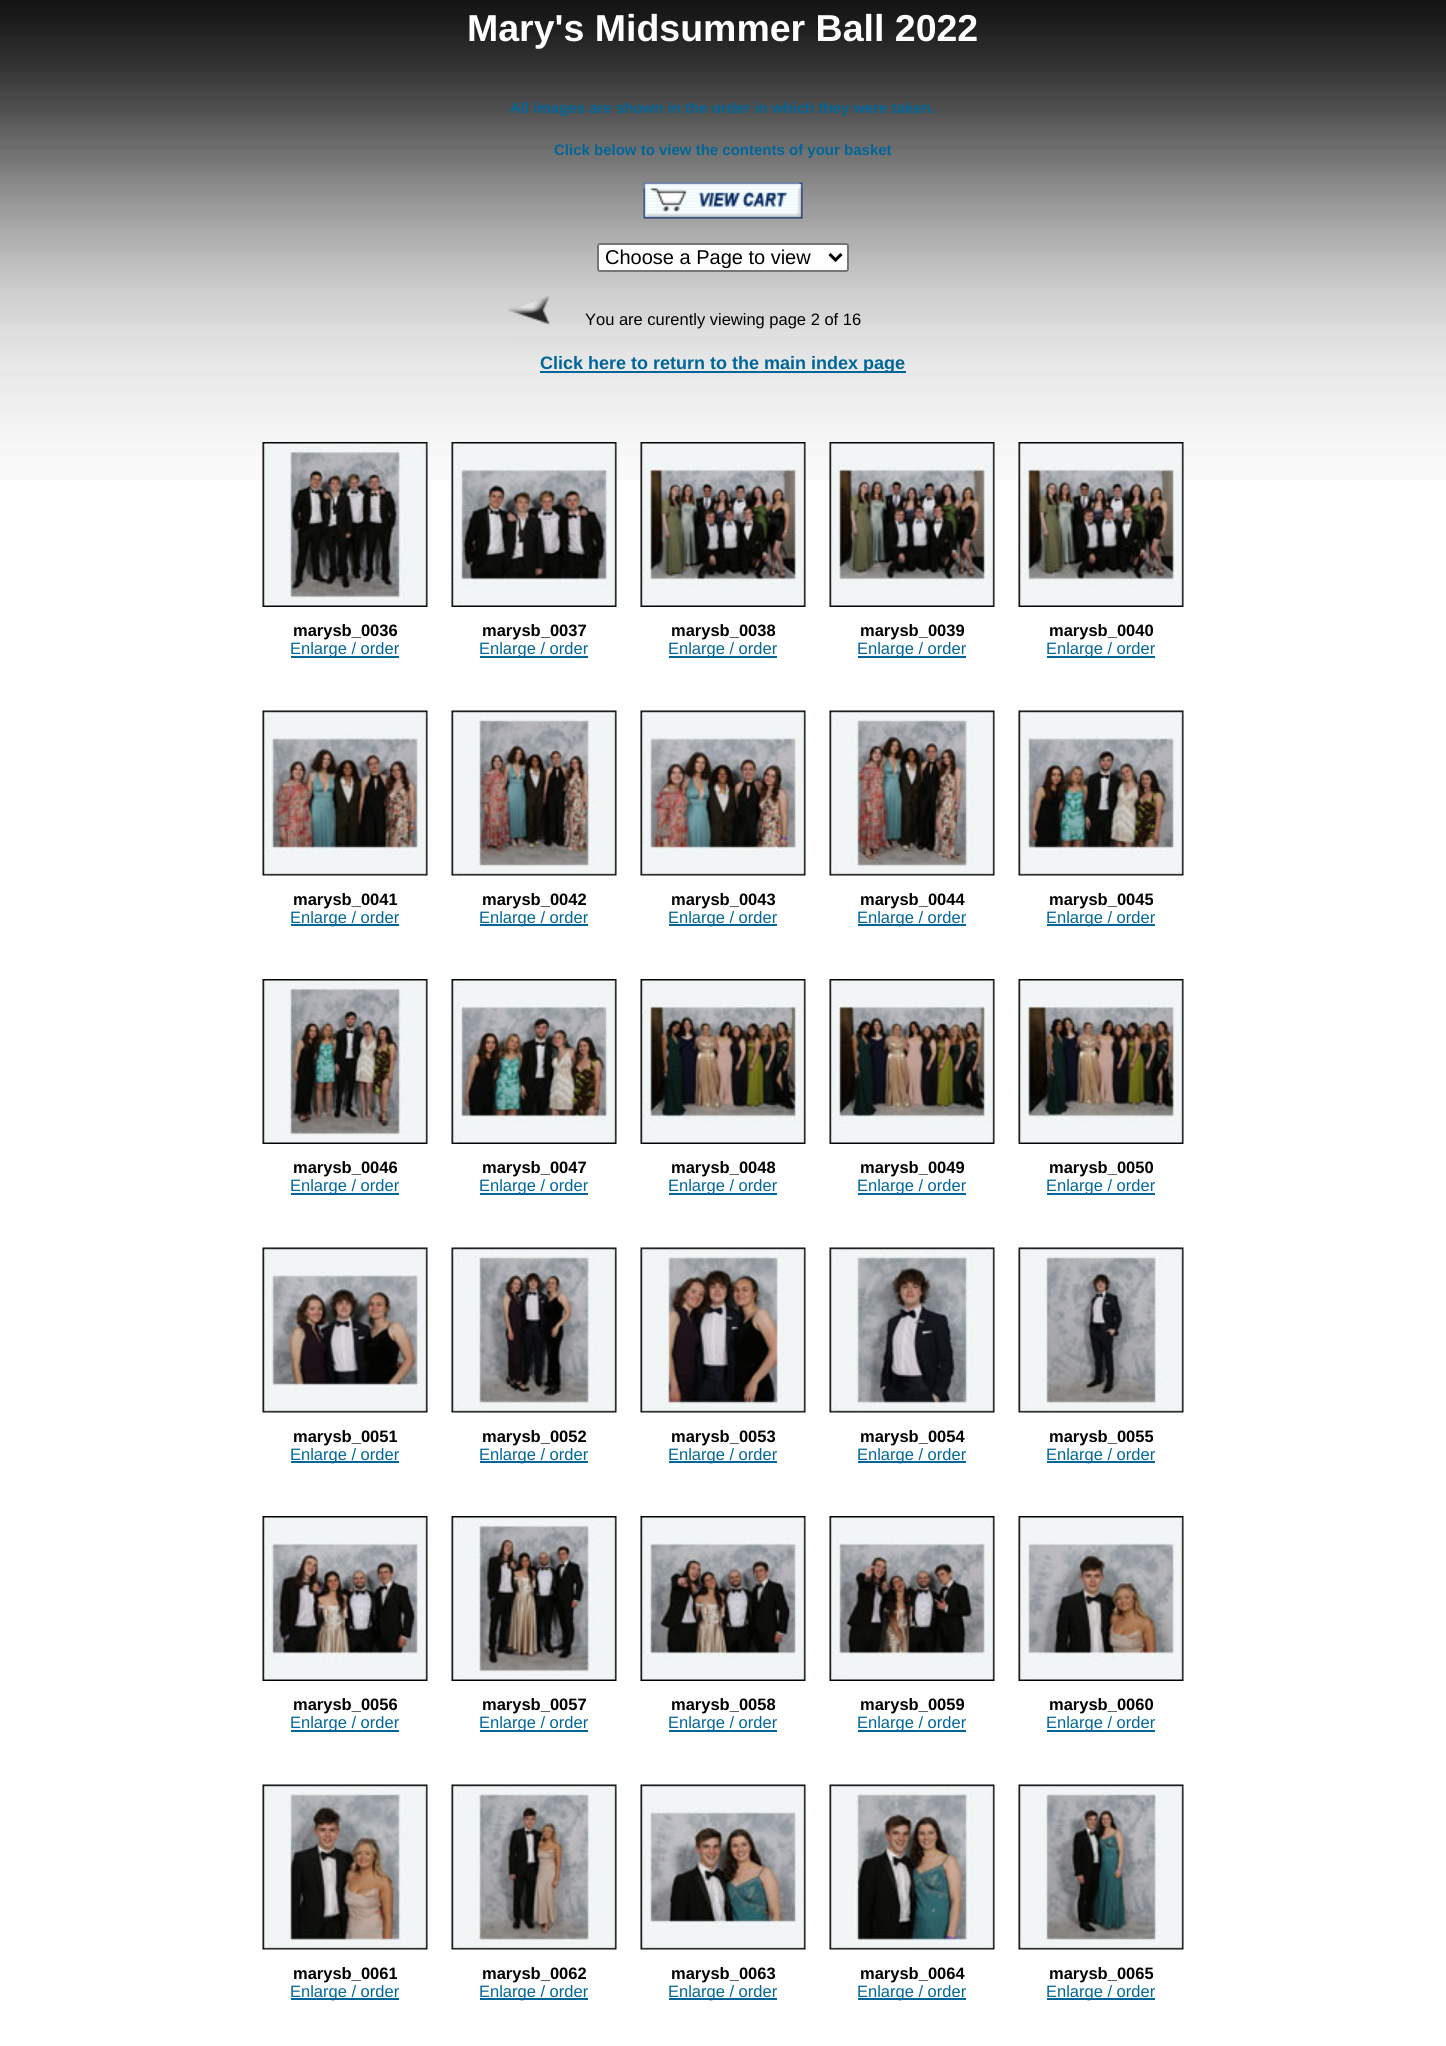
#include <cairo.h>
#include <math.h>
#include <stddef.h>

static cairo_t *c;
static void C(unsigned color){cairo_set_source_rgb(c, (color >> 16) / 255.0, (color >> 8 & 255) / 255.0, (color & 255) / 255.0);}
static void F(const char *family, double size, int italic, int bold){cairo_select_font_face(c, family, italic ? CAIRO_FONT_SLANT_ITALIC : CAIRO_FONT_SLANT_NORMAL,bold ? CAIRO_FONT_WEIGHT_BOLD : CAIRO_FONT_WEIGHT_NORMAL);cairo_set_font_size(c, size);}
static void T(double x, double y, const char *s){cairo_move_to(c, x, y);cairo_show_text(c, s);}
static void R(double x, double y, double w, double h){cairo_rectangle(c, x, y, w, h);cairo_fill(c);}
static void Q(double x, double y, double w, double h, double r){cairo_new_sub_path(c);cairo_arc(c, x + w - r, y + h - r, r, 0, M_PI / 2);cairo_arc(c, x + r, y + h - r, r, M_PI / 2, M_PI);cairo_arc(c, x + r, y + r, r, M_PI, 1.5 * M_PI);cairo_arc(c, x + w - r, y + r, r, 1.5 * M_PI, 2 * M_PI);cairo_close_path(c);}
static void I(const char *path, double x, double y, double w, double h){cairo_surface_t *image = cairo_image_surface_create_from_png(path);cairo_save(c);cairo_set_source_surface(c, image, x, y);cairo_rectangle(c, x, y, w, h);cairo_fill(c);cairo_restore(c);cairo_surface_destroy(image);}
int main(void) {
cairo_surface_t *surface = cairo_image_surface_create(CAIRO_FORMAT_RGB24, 1446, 2046);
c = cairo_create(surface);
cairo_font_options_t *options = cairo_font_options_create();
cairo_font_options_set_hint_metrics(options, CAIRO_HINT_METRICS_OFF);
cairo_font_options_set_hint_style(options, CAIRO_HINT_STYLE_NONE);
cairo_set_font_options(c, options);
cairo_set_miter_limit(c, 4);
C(0xffffff);
cairo_paint(c);
I("1.png",0,0,1446,480);
F("Liberation Sans",37.5,0,1);
C(0xffffff);
T(467,41,"Mary's Midsummer Ball 2022");
F("Liberation Sans",15,0,1);
C(0x006699);
T(510,113,"All images are shown in the order in which they were taken.");
T(554,155,"Click below to view the contents of your basket");
I("2.png",643,182,160,37);
C(0xffffff);
Q(598,244,250,27,2);
cairo_fill_preserve(c);
C(0x767676);
cairo_stroke(c);
cairo_new_path(c);
cairo_move_to(c,829.5,254);
cairo_line_to(c,835.5,260);
cairo_line_to(c,841.5,254);
C(0x000000);
cairo_set_line_width(c,3);
cairo_stroke(c);
F("Liberation Sans",20,0,0);
T(605,264,"Choose a Page to view");
I("3.png",508,296,42,29);
F("Liberation Sans",16.5,0,0);
T(585,325,"You are curently viewing page 2 of 16");
C(0x006699);
R(540,371,366,2);
F("Liberation Sans",18,0,1);
T(540,369,"Click here to return to the main index page");
I("4.png",262,442,166,165);
I("5.png",451,442,166,165);
I("6.png",640,442,166,165);
I("7.png",829,442,166,165);
I("8.png",1018,442,166,165);
F("Liberation Sans",16.5,0,1);
C(0x000000);
T(293,636,"marysb_0036");
C(0x006699);
R(291,656,108,2);
F("Liberation Sans",16.5,0,0);
T(290,654,"Enlarge / order");
F("Liberation Sans",16.5,0,1);
C(0x000000);
T(482,636,"marysb_0037");
C(0x006699);
R(480,656,108,2);
F("Liberation Sans",16.5,0,0);
T(479,654,"Enlarge / order");
F("Liberation Sans",16.5,0,1);
C(0x000000);
T(671,636,"marysb_0038");
C(0x006699);
R(669,656,108,2);
F("Liberation Sans",16.5,0,0);
T(668,654,"Enlarge / order");
F("Liberation Sans",16.5,0,1);
C(0x000000);
T(860,636,"marysb_0039");
C(0x006699);
R(858,656,108,2);
F("Liberation Sans",16.5,0,0);
T(857,654,"Enlarge / order");
F("Liberation Sans",16.5,0,1);
C(0x000000);
T(1049,636,"marysb_0040");
C(0x006699);
R(1047,656,108,2);
F("Liberation Sans",16.5,0,0);
T(1046,654,"Enlarge / order");
I("9.png",262,710,166,166);
I("10.png",451,710,166,166);
I("11.png",640,710,166,166);
I("12.png",829,710,166,166);
I("13.png",1018,710,166,166);
F("Liberation Sans",16.5,0,1);
C(0x000000);
T(293,905,"marysb_0041");
C(0x006699);
R(291,924,108,2);
F("Liberation Sans",16.5,0,0);
T(290,923,"Enlarge / order");
F("Liberation Sans",16.5,0,1);
C(0x000000);
T(482,905,"marysb_0042");
C(0x006699);
R(480,924,108,2);
F("Liberation Sans",16.5,0,0);
T(479,923,"Enlarge / order");
F("Liberation Sans",16.5,0,1);
C(0x000000);
T(671,905,"marysb_0043");
C(0x006699);
R(669,924,108,2);
F("Liberation Sans",16.5,0,0);
T(668,923,"Enlarge / order");
F("Liberation Sans",16.5,0,1);
C(0x000000);
T(860,905,"marysb_0044");
C(0x006699);
R(858,924,108,2);
F("Liberation Sans",16.5,0,0);
T(857,923,"Enlarge / order");
F("Liberation Sans",16.5,0,1);
C(0x000000);
T(1049,905,"marysb_0045");
C(0x006699);
R(1047,924,108,2);
F("Liberation Sans",16.5,0,0);
T(1046,923,"Enlarge / order");
I("14.png",262,979,166,165);
I("15.png",451,979,166,165);
I("16.png",640,979,166,165);
I("17.png",829,979,166,165);
I("18.png",1018,979,166,165);
F("Liberation Sans",16.5,0,1);
C(0x000000);
T(293,1173,"marysb_0046");
C(0x006699);
R(291,1193,108,2);
F("Liberation Sans",16.5,0,0);
T(290,1191,"Enlarge / order");
F("Liberation Sans",16.5,0,1);
C(0x000000);
T(482,1173,"marysb_0047");
C(0x006699);
R(480,1193,108,2);
F("Liberation Sans",16.5,0,0);
T(479,1191,"Enlarge / order");
F("Liberation Sans",16.5,0,1);
C(0x000000);
T(671,1173,"marysb_0048");
C(0x006699);
R(669,1193,108,2);
F("Liberation Sans",16.5,0,0);
T(668,1191,"Enlarge / order");
F("Liberation Sans",16.5,0,1);
C(0x000000);
T(860,1173,"marysb_0049");
C(0x006699);
R(858,1193,108,2);
F("Liberation Sans",16.5,0,0);
T(857,1191,"Enlarge / order");
F("Liberation Sans",16.5,0,1);
C(0x000000);
T(1049,1173,"marysb_0050");
C(0x006699);
R(1047,1193,108,2);
F("Liberation Sans",16.5,0,0);
T(1046,1191,"Enlarge / order");
I("19.png",262,1247,166,166);
I("20.png",451,1247,166,166);
I("21.png",640,1247,166,166);
I("22.png",829,1247,166,166);
I("23.png",1018,1247,166,166);
F("Liberation Sans",16.5,0,1);
C(0x000000);
T(293,1442,"marysb_0051");
C(0x006699);
R(291,1461,108,2);
F("Liberation Sans",16.5,0,0);
T(290,1460,"Enlarge / order");
F("Liberation Sans",16.5,0,1);
C(0x000000);
T(482,1442,"marysb_0052");
C(0x006699);
R(480,1461,108,2);
F("Liberation Sans",16.5,0,0);
T(479,1460,"Enlarge / order");
F("Liberation Sans",16.5,0,1);
C(0x000000);
T(671,1442,"marysb_0053");
C(0x006699);
R(669,1461,108,2);
F("Liberation Sans",16.5,0,0);
T(668,1460,"Enlarge / order");
F("Liberation Sans",16.5,0,1);
C(0x000000);
T(860,1442,"marysb_0054");
C(0x006699);
R(858,1461,108,2);
F("Liberation Sans",16.5,0,0);
T(857,1460,"Enlarge / order");
F("Liberation Sans",16.5,0,1);
C(0x000000);
T(1049,1442,"marysb_0055");
C(0x006699);
R(1047,1461,108,2);
F("Liberation Sans",16.5,0,0);
T(1046,1460,"Enlarge / order");
I("24.png",262,1516,166,165);
I("25.png",451,1516,166,165);
I("26.png",640,1516,166,165);
I("27.png",829,1516,166,165);
I("28.png",1018,1516,166,165);
F("Liberation Sans",16.5,0,1);
C(0x000000);
T(293,1710,"marysb_0056");
C(0x006699);
R(291,1730,108,2);
F("Liberation Sans",16.5,0,0);
T(290,1728,"Enlarge / order");
F("Liberation Sans",16.5,0,1);
C(0x000000);
T(482,1710,"marysb_0057");
C(0x006699);
R(480,1730,108,2);
F("Liberation Sans",16.5,0,0);
T(479,1728,"Enlarge / order");
F("Liberation Sans",16.5,0,1);
C(0x000000);
T(671,1710,"marysb_0058");
C(0x006699);
R(669,1730,108,2);
F("Liberation Sans",16.5,0,0);
T(668,1728,"Enlarge / order");
F("Liberation Sans",16.5,0,1);
C(0x000000);
T(860,1710,"marysb_0059");
C(0x006699);
R(858,1730,108,2);
F("Liberation Sans",16.5,0,0);
T(857,1728,"Enlarge / order");
F("Liberation Sans",16.5,0,1);
C(0x000000);
T(1049,1710,"marysb_0060");
C(0x006699);
R(1047,1730,108,2);
F("Liberation Sans",16.5,0,0);
T(1046,1728,"Enlarge / order");
I("29.png",262,1784,166,166);
I("30.png",451,1784,166,166);
I("31.png",640,1784,166,166);
I("32.png",829,1784,166,166);
I("33.png",1018,1784,166,166);
F("Liberation Sans",16.5,0,1);
C(0x000000);
T(293,1979,"marysb_0061");
C(0x006699);
R(291,1998,108,2);
F("Liberation Sans",16.5,0,0);
T(290,1997,"Enlarge / order");
F("Liberation Sans",16.5,0,1);
C(0x000000);
T(482,1979,"marysb_0062");
C(0x006699);
R(480,1998,108,2);
F("Liberation Sans",16.5,0,0);
T(479,1997,"Enlarge / order");
F("Liberation Sans",16.5,0,1);
C(0x000000);
T(671,1979,"marysb_0063");
C(0x006699);
R(669,1998,108,2);
F("Liberation Sans",16.5,0,0);
T(668,1997,"Enlarge / order");
F("Liberation Sans",16.5,0,1);
C(0x000000);
T(860,1979,"marysb_0064");
C(0x006699);
R(858,1998,108,2);
F("Liberation Sans",16.5,0,0);
T(857,1997,"Enlarge / order");
F("Liberation Sans",16.5,0,1);
C(0x000000);
T(1049,1979,"marysb_0065");
C(0x006699);
R(1047,1998,108,2);
F("Liberation Sans",16.5,0,0);
T(1046,1997,"Enlarge / order");
cairo_surface_write_to_png(surface, "o.png");
cairo_font_options_destroy(options);
cairo_destroy(c);
cairo_surface_destroy(surface);
return 0;
}
